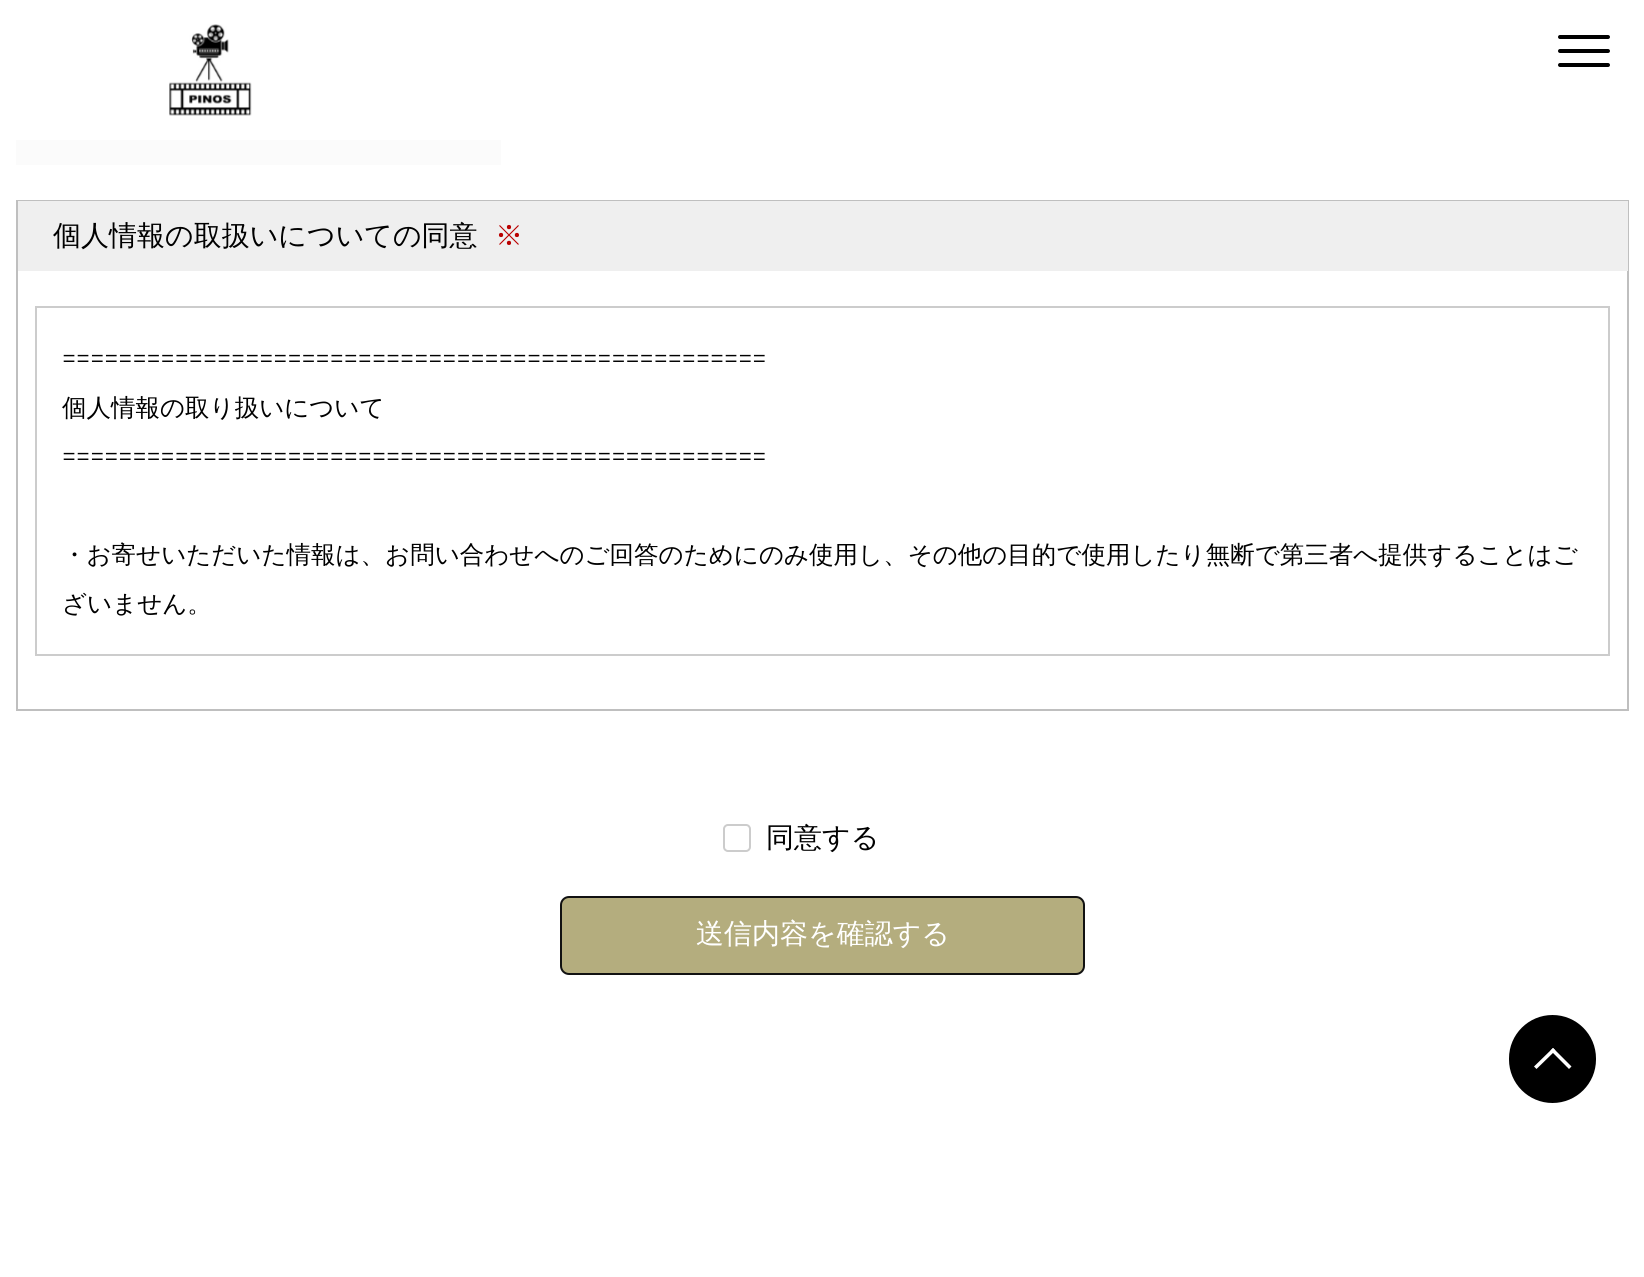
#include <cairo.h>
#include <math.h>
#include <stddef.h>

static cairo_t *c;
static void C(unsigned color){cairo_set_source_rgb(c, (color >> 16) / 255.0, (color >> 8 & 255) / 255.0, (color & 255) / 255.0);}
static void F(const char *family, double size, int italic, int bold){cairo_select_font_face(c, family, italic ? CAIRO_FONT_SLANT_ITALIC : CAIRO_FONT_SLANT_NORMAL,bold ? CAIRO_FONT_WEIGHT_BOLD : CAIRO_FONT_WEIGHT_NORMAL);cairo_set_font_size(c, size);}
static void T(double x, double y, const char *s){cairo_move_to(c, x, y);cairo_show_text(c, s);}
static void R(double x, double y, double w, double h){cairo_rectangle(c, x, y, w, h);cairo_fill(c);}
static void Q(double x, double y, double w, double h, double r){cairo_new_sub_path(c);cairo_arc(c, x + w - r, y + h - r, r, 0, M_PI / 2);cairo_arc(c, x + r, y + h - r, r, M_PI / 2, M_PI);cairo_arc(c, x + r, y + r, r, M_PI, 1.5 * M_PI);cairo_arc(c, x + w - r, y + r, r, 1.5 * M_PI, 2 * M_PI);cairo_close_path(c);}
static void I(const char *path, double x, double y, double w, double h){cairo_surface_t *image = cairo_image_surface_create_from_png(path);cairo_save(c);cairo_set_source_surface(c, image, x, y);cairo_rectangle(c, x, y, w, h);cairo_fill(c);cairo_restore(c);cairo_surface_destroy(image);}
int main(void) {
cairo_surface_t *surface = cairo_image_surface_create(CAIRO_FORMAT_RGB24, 1644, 1277);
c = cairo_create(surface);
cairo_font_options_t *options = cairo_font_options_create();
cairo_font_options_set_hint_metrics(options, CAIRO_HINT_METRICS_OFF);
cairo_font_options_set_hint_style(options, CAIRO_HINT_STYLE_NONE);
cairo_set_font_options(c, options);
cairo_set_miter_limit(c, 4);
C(0xffffff);
cairo_paint(c);
I("1.png",169,24,83,92);
C(0x000000);
Q(1558,35,52,4,2);
cairo_fill(c);
Q(1558,49,52,4,2);
cairo_fill(c);
Q(1558,63,52,4,2);
cairo_fill(c);
C(0xfbfbfb);
R(16,140,485,25);
cairo_rectangle(c,17,201,1611,509);
C(0xbfbfbf);
cairo_stroke(c);
C(0xefefef);
R(18,201,1610,70);
F("WenQuanYi Zen Hei Medium",28,0,0);
C(0x000000);
T(53,245,"個人情報の取扱いについての同意");
C(0xba0000);
T(495,245,"※");
cairo_rectangle(c,36,307,1573,348);
C(0xcccccc);
cairo_stroke(c);
F("Montserrat",24.5,0,0);
C(0x000000);
T(62,367,"==================================================");
F("WenQuanYi Zen Hei Medium",24.5,0,0);
T(62,416,"個人情報の取り扱いについて");
F("Montserrat",24.5,0,0);
T(62,465,"==================================================");
F("WenQuanYi Zen Hei Medium",24.5,0,0);
T(62,563,"・お寄せいただいた情報は、お問い合わせへのご回答のためにのみ使用し、その他の目的で使用したり無断で第三者へ提供することはご");
T(62,612,"ざいません。");
Q(724,825,26,26,4);
C(0xcccccc);
cairo_stroke(c);
F("WenQuanYi Zen Hei Medium",28,0,0);
C(0x000000);
T(766,847,"同意する");
C(0xb4ad7e);
Q(561,897,523,77,8);
cairo_fill_preserve(c);
C(0x111111);
cairo_stroke(c);
C(0xffffff);
T(696,943,"送信内容を確認する");
C(0x000000);
Q(1509,1015,87,88,43.5);
cairo_fill(c);
C(0xffffff);
cairo_new_path(c);
cairo_move_to(c,1553,1048);
cairo_line_to(c,1571.5,1066.5);
cairo_line_to(c,1569,1069);
cairo_line_to(c,1550.5,1050.5);
cairo_close_path(c);
cairo_fill(c);
cairo_new_path(c);
cairo_move_to(c,1553,1048);
cairo_line_to(c,1555.5,1050.5);
cairo_line_to(c,1536.5,1069);
cairo_line_to(c,1534,1066.5);
cairo_close_path(c);
cairo_fill(c);
cairo_surface_write_to_png(surface, "o.png");
cairo_font_options_destroy(options);
cairo_destroy(c);
cairo_surface_destroy(surface);
return 0;
}
